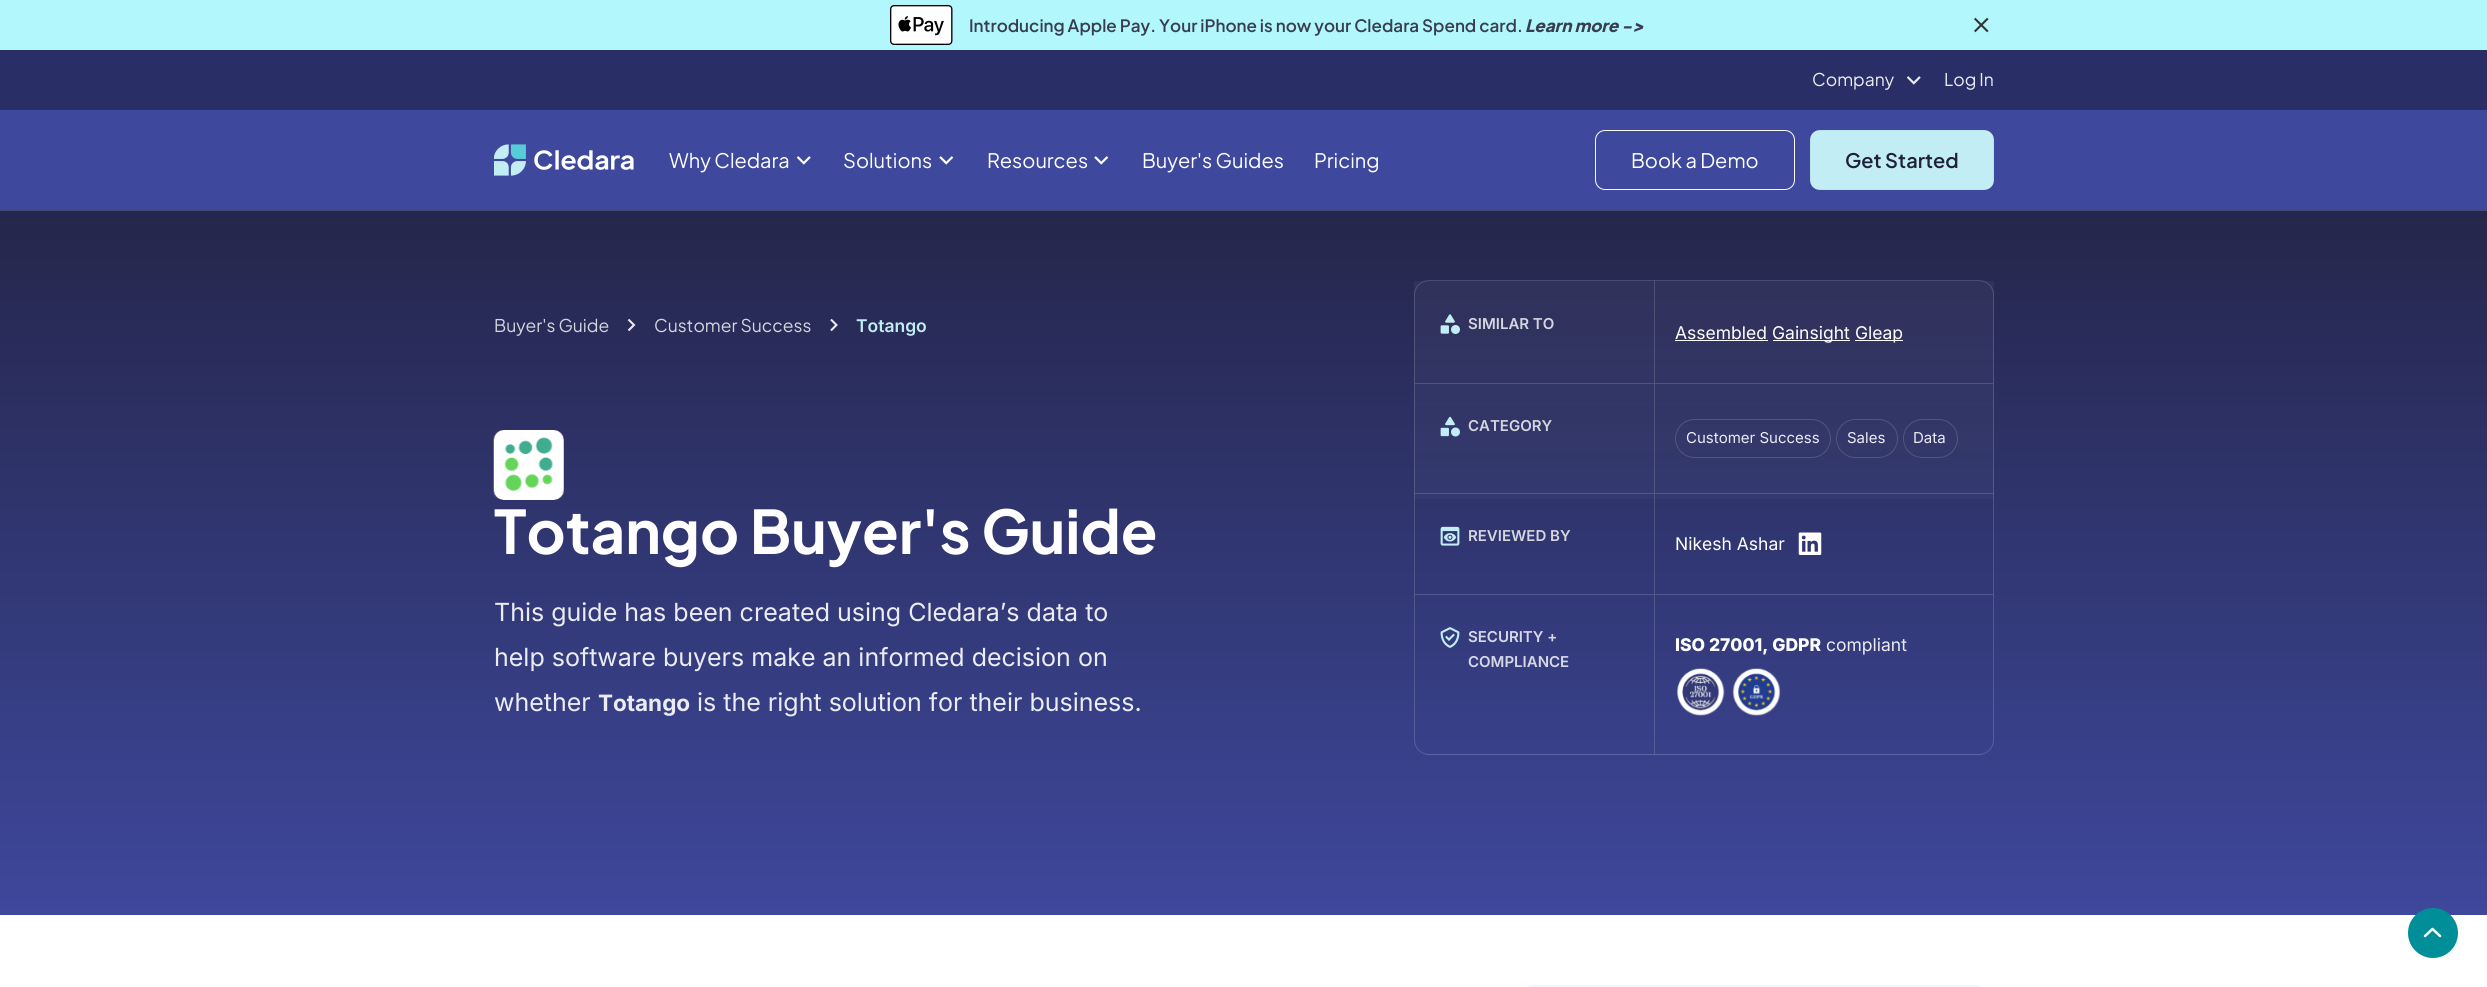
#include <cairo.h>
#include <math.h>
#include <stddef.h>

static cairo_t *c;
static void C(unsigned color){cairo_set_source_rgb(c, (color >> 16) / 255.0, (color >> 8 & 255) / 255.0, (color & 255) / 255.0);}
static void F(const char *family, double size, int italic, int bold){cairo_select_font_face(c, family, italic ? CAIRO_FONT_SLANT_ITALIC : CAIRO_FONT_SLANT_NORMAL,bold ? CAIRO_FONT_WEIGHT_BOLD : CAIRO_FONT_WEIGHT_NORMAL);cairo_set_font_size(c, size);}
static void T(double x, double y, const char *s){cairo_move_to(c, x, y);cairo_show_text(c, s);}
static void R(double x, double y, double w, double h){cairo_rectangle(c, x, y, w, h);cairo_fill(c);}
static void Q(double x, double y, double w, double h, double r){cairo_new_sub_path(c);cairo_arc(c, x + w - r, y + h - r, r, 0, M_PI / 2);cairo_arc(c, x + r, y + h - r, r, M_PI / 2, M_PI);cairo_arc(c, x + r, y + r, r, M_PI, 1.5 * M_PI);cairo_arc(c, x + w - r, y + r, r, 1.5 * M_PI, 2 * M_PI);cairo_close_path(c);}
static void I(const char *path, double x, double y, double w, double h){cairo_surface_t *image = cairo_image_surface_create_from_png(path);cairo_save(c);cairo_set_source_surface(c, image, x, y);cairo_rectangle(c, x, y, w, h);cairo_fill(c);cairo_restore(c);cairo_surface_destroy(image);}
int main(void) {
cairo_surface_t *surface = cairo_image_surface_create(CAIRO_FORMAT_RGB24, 2487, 987);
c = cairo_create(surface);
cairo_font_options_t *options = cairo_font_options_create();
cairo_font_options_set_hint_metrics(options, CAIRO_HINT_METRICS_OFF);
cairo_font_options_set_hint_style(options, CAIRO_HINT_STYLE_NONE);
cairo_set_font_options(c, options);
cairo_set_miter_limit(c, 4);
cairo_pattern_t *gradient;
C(0xffffff);
cairo_paint(c);
C(0xb1f7fc);
R(0,0,2487,50);
I("1.png",890,5,63,40);
F("Plus Jakarta Sans SemiBold",17,0,0);
C(0x393d52);
T(969,32,"Introducing Apple Pay. Your iPhone is now your Cledara Spend card.");
F("Plus Jakarta Sans ExtraBold",17,1,0);
T(1525,32,"Learn more ->");
I("2.png",1974,17,15,16);
C(0x424773);
R(0,210,2487,1);
C(0x292f66);
R(0,50,2487,60);
F("Plus Jakarta Sans",17.5,0,0);
C(0xebebf2);
T(1812,86,"Company");
I("3.png",1906,76,15,9);
T(1944,86,"Log In");
C(0x3e489c);
R(0,110,2487,100);
I("4.png",494,144,140,32);
F("Plus Jakarta Sans",20,0,0);
C(0xffffff);
T(669,168,"Why Cledara");
I("5.png",796,156,15,9);
T(843,168,"Solutions");
I("6.png",939,156,15,9);
T(987,168,"Resources");
I("6.png",1094,156,15,9);
T(1142,168,"Buyer's Guides");
T(1314,168,"Pricing");
Q(1595.5,130.5,199,59,9.5);
cairo_set_line_width(c,1);
cairo_stroke(c);
cairo_rectangle(c,1595.5,130.5,199,59);
cairo_set_source_rgba(c,0.467,0.467,0.467,0.04);
cairo_stroke(c);
C(0xffffff);
T(1631,168,"Book a Demo");
C(0xc2edf5);
Q(1810,130,184,60,10);
cairo_fill(c);
cairo_rectangle(c,1810.5,130.5,183,59);
cairo_set_source_rgba(c,0,0,0,0.04);
cairo_stroke(c);
F("Plus Jakarta Sans SemiBold",20,0,0);
C(0x20203b);
T(1845,168,"Get Started");
gradient = cairo_pattern_create_linear(1244,80,1244,915);
cairo_pattern_add_color_stop_rgba(gradient,0,0.125,0.125,0.235,1);
cairo_pattern_add_color_stop_rgba(gradient,1,0.243,0.282,0.612,1);
cairo_set_source(c,gradient);
cairo_pattern_destroy(gradient);
R(0,211,2487,704);
F("Plus Jakarta Sans",17.5,0,0);
C(0xd4d5de);
T(494,332,"Buyer's Guide");
I("7.png",627,318,9,14);
T(654,332,"Customer Success");
I("8.png",830,318,8,14);
F("Inter SemiBold",17.5,0,0);
C(0xc2edf5);
T(856,332,"Totango");
I("9.png",493,430,71,70);
F("Plus Jakarta Sans",60,0,1);
C(0xffffff);
T(494,554,"Totango Buyer's Guide");
F("Inter",25,0,0);
C(0xebebf2);
T(494,621,"This guide has been created using Cledara’s data to");
T(494,666,"help software buyers make an informed decision on");
T(494,711,"whether");
F("Inter",22.5,0,1);
T(598,711,"Totango");
F("Inter",25,0,0);
T(697,711,"is the right solution for their business.");
gradient = cairo_pattern_create_linear(1704,281,1704,754);
cairo_pattern_add_color_stop_rgba(gradient,0,1,1,1,.04);
cairo_pattern_add_color_stop_rgba(gradient,1,1,1,1,0);
cairo_set_source(c,gradient);
cairo_pattern_destroy(gradient);
R(1414,281,580,218);
cairo_save(c);
Q(1414,280,580,475,15);
cairo_clip(c);
gradient = cairo_pattern_create_linear(1704,754,1704,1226);
cairo_pattern_add_color_stop_rgba(gradient,0,0.251,0.282,0.561,1);
cairo_pattern_add_color_stop_rgba(gradient,1,0.22,0.251,0.541,1);
cairo_set_source(c,gradient);
cairo_pattern_destroy(gradient);
R(1424,754,560,1);
cairo_restore(c);
Q(1414.5,280.5,579,474,14.5);
cairo_set_source_rgba(c,0.831,0.859,0.91,0.2);
cairo_stroke(c);
C(0x50547b);
R(1415,383,578,1);
cairo_set_source_rgba(c,1,1,1,0.15);
R(1654,281,1,102);
I("10.png",1440,314,20,20);
F("Inter SemiBold",15,0,0);
C(0xd4d5de);
T(1468,329,"SIMILAR TO");
F("Inter",17.5,0,0);
C(0xffffff);
T(1675,339,"Assembled");
R(1675,340,93,1);
R(1773,340,77,1);
T(1772,339,"Gainsight");
R(1855,340,48,1);
T(1855,339,"Gleap");
C(0x525785);
R(1415,493,578,1);
cairo_set_source_rgba(c,1,1,1,0.15);
R(1654,384,1,109);
I("11.png",1440,416,20,21);
F("Inter SemiBold",15,0,0);
C(0xd4d5de);
T(1468,431,"CATEGORY");
Q(1675.5,419.5,155,38,19);
cairo_set_source_rgba(c,1,1,1,0.15);
cairo_stroke(c);
F("Inter",15,0,0);
C(0xebebf2);
T(1686,443,"Customer Success");
Q(1836.5,419.5,61,38,19);
cairo_set_source_rgba(c,1,1,1,0.15);
cairo_stroke(c);
C(0xebebf2);
T(1847,443,"Sales");
Q(1903.5,419.5,54,38,19);
cairo_set_source_rgba(c,1,1,1,0.15);
cairo_stroke(c);
C(0xebebf2);
T(1913,443,"Data");
C(0x53598d);
R(1415,594,578,1);
cairo_set_source_rgba(c,1,1,1,0.15);
R(1654,494,1,100);
I("12.png",1440,526,20,20);
F("Inter SemiBold",15,0,0);
C(0xd4d5de);
T(1468,541,"REVIEWED BY");
F("Inter",17.5,0,0);
C(0xffffff);
T(1675,550,"Nikesh Ashar");
I("13.png",1798,532,24,23);
cairo_set_source_rgba(c,1,1,1,0.15);
R(1654,595,1,159);
I("14.png",1440,627,20,21);
F("Inter SemiBold",15,0,0);
C(0xd7d8e5);
T(1468,642,"SECURITY +");
T(1468,667,"COMPLIANCE");
F("Inter ExtraBold",17.5,0,0);
C(0xffffff);
T(1675,651,"ISO 27001, GDPR");
F("Inter",17.5,0,0);
C(0xebebf2);
T(1826,651,"compliant");
I("15.png",1677,668,104,48);
C(0xecf9fc);
cairo_new_path(c);
cairo_move_to(c,1534,985);
cairo_line_to(c,1974,985);
cairo_curve_to(c,1985,985,1994,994,1994,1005);
cairo_line_to(c,1994,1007);
cairo_line_to(c,1514,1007);
cairo_line_to(c,1514,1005);
cairo_curve_to(c,1514,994,1523,985,1534,985);
cairo_close_path(c);
cairo_fill(c);
C(0x008f99);
cairo_arc(c,2433,933,23.5,0,2 * M_PI);
cairo_fill_preserve(c);
cairo_set_line_width(c,3);
cairo_stroke(c);
cairo_new_path(c);
cairo_move_to(c,2440,936);
cairo_line_to(c,2432.5,929);
cairo_line_to(c,2425,936);
C(0xffffff);
cairo_set_line_width(c,2.5);
cairo_set_line_cap(c,CAIRO_LINE_CAP_ROUND);
cairo_set_line_join(c,CAIRO_LINE_JOIN_ROUND);
cairo_stroke(c);
cairo_surface_write_to_png(surface, "o.png");
cairo_font_options_destroy(options);
cairo_destroy(c);
cairo_surface_destroy(surface);
return 0;
}
